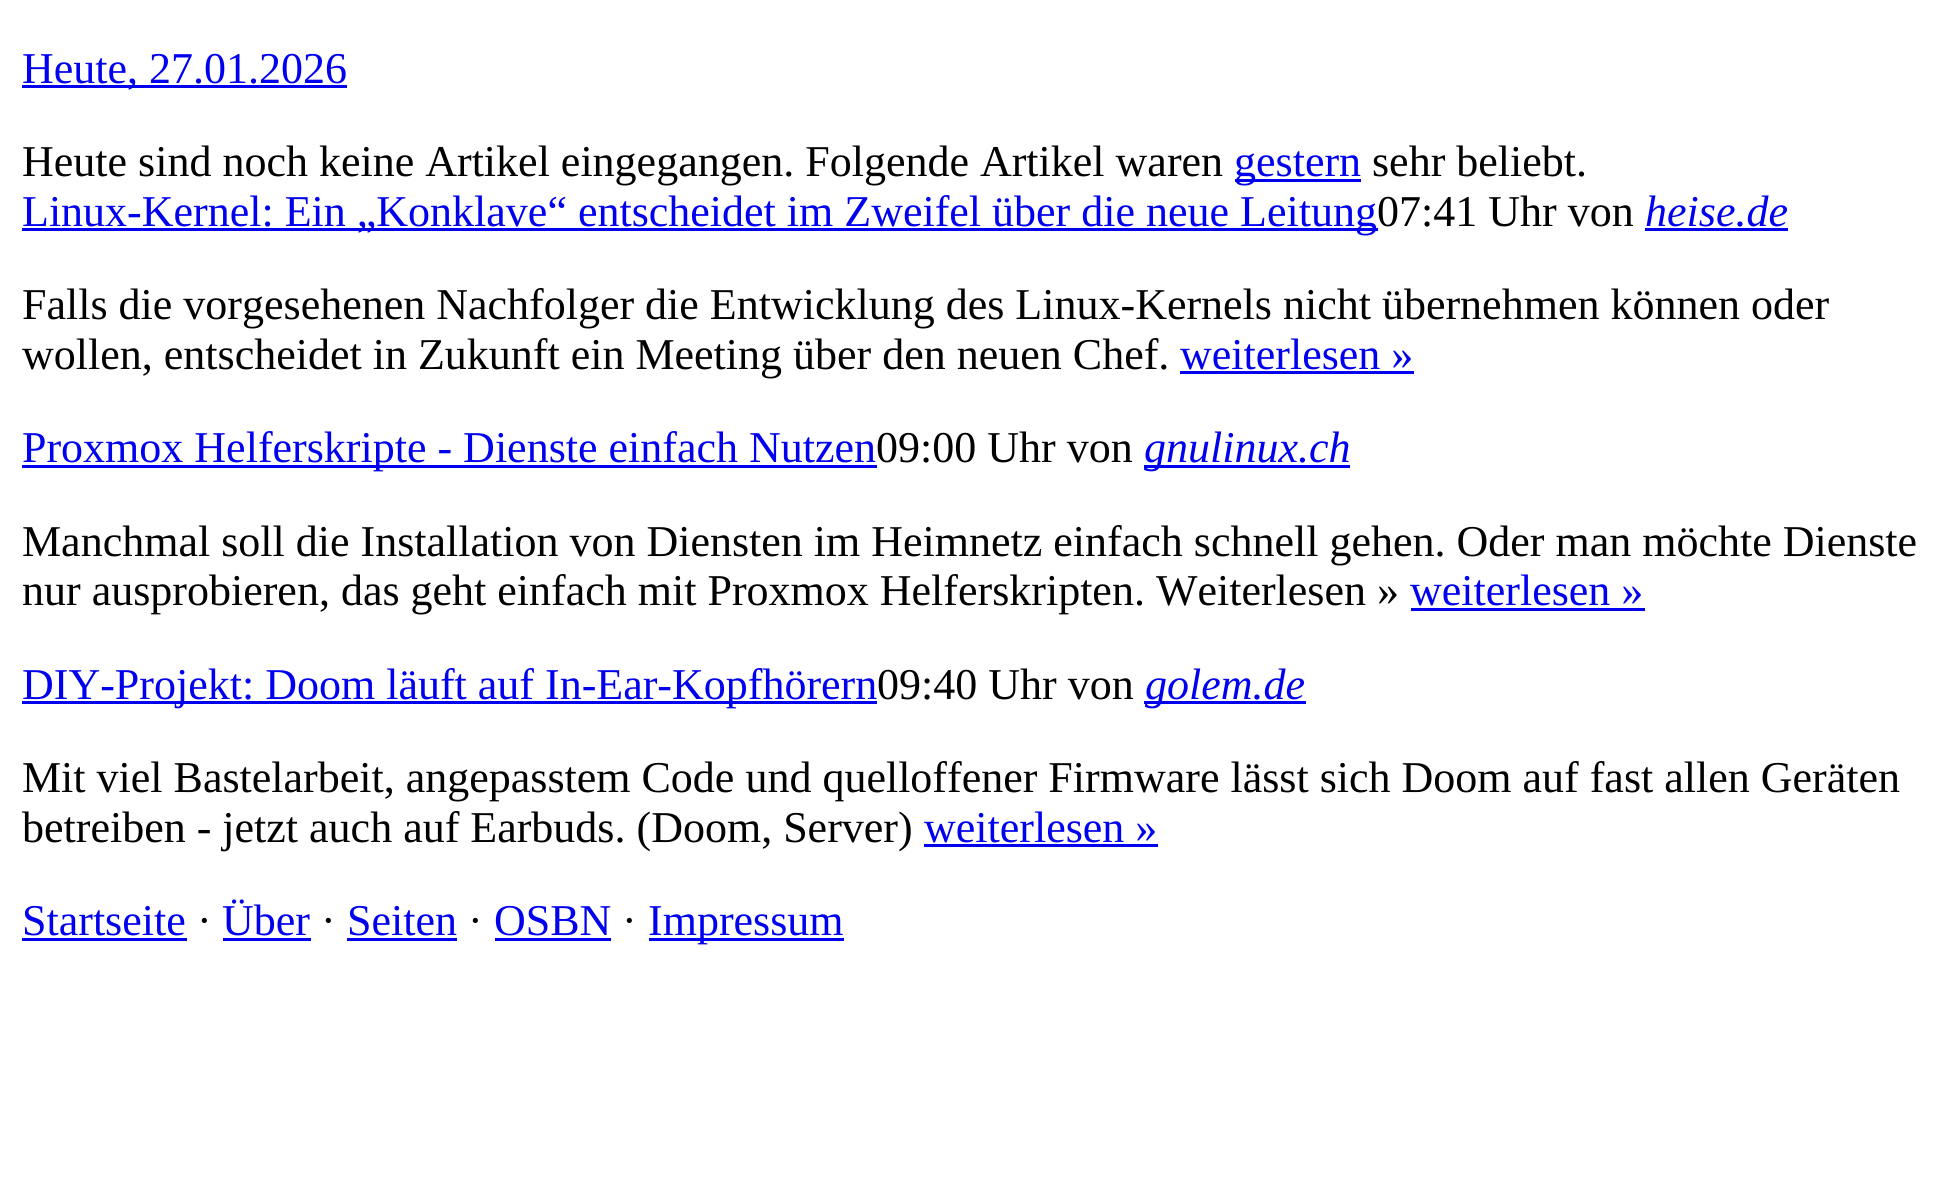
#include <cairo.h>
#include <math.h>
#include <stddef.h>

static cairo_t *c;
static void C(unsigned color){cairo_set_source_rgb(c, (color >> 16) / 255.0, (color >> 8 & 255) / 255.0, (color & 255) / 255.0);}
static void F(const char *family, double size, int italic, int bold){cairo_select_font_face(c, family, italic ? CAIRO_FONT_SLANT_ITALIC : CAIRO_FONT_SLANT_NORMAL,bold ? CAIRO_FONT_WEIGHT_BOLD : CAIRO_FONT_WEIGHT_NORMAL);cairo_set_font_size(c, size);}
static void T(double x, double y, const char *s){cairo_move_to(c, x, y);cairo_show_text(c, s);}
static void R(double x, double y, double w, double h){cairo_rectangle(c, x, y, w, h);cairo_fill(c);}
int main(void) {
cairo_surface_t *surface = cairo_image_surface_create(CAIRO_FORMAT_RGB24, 1944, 1183);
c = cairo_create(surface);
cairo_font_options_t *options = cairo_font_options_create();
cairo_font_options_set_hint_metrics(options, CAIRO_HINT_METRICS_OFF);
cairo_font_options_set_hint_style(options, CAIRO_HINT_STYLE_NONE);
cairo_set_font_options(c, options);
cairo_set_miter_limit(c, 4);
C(0xffffff);
cairo_paint(c);
C(0x0000ee);
R(22,85,325,3);
F("Liberation Serif",44,0,0);
T(22,83,"Heute, 27.01.2026");
C(0x000000);
T(22,176,"Heute sind noch keine Artikel eingegangen. Folgende Artikel waren");
C(0x0000ee);
R(1235,179,126,3);
T(1234,176,"gestern");
C(0x000000);
T(1372,176,"sehr beliebt.");
C(0x0000ee);
R(22,228,1356,3);
T(22,226,"Linux-Kernel: Ein „Konklave“ entscheidet im Zweifel über die neue Leitung");
C(0x000000);
T(1377,226,"07:41 Uhr von");
F("Liberation Serif",44,1,0);
C(0x0000ee);
T(1645,226,"heise.de");
R(1645,228,143,3);
F("Liberation Serif",44,0,0);
C(0x000000);
T(22,319,"Falls die vorgesehenen Nachfolger die Entwicklung des Linux-Kernels nicht übernehmen können oder");
T(22,369,"wollen, entscheidet in Zukunft ein Meeting über den neuen Chef.");
C(0x0000ee);
T(1180,369,"weiterlesen »");
R(1180,371,234,3);
R(22,465,855,3);
T(22,462,"Proxmox Helferskripte - Dienste einfach Nutzen");
C(0x000000);
T(876,462,"09:00 Uhr von");
C(0x0000ee);
R(1144,465,206,3);
F("Liberation Serif",44,1,0);
T(1144,462,"gnulinux.ch");
F("Liberation Serif",44,0,0);
C(0x000000);
T(22,556,"Manchmal soll die Installation von Diensten im Heimnetz einfach schnell gehen. Oder man möchte Dienste");
T(22,605,"nur ausprobieren, das geht einfach mit Proxmox Helferskripten. Weiterlesen »");
C(0x0000ee);
T(1410,605,"weiterlesen »");
R(1411,608,234,3);
R(22,701,855,3);
T(22,699,"DIY-Projekt: Doom läuft auf In-Ear-Kopfhörern");
C(0x000000);
T(877,699,"09:40 Uhr von");
C(0x0000ee);
R(1144,701,162,3);
F("Liberation Serif",44,1,0);
T(1145,699,"golem.de");
F("Liberation Serif",44,0,0);
C(0x000000);
T(22,792,"Mit viel Bastelarbeit, angepasstem Code und quelloffener Firmware lässt sich Doom auf fast allen Geräten");
T(22,842,"betreiben - jetzt auch auf Earbuds. (Doom, Server)");
C(0x0000ee);
T(924,842,"weiterlesen »");
R(924,844,234,3);
T(22,935,"Startseite");
R(22,938,165,3);
C(0x000000);
T(197,935,"·");
C(0x0000ee);
T(222,935,"Über");
R(223,938,88,3);
C(0x000000);
T(321,935,"·");
C(0x0000ee);
T(347,935,"Seiten");
R(347,938,110,3);
C(0x000000);
T(468,935,"·");
C(0x0000ee);
T(494,935,"OSBN");
R(495,938,116,3);
C(0x000000);
T(622,935,"·");
C(0x0000ee);
R(649,938,195,3);
T(648,935,"Impressum");
cairo_surface_write_to_png(surface, "o.png");
cairo_font_options_destroy(options);
cairo_destroy(c);
cairo_surface_destroy(surface);
return 0;
}
